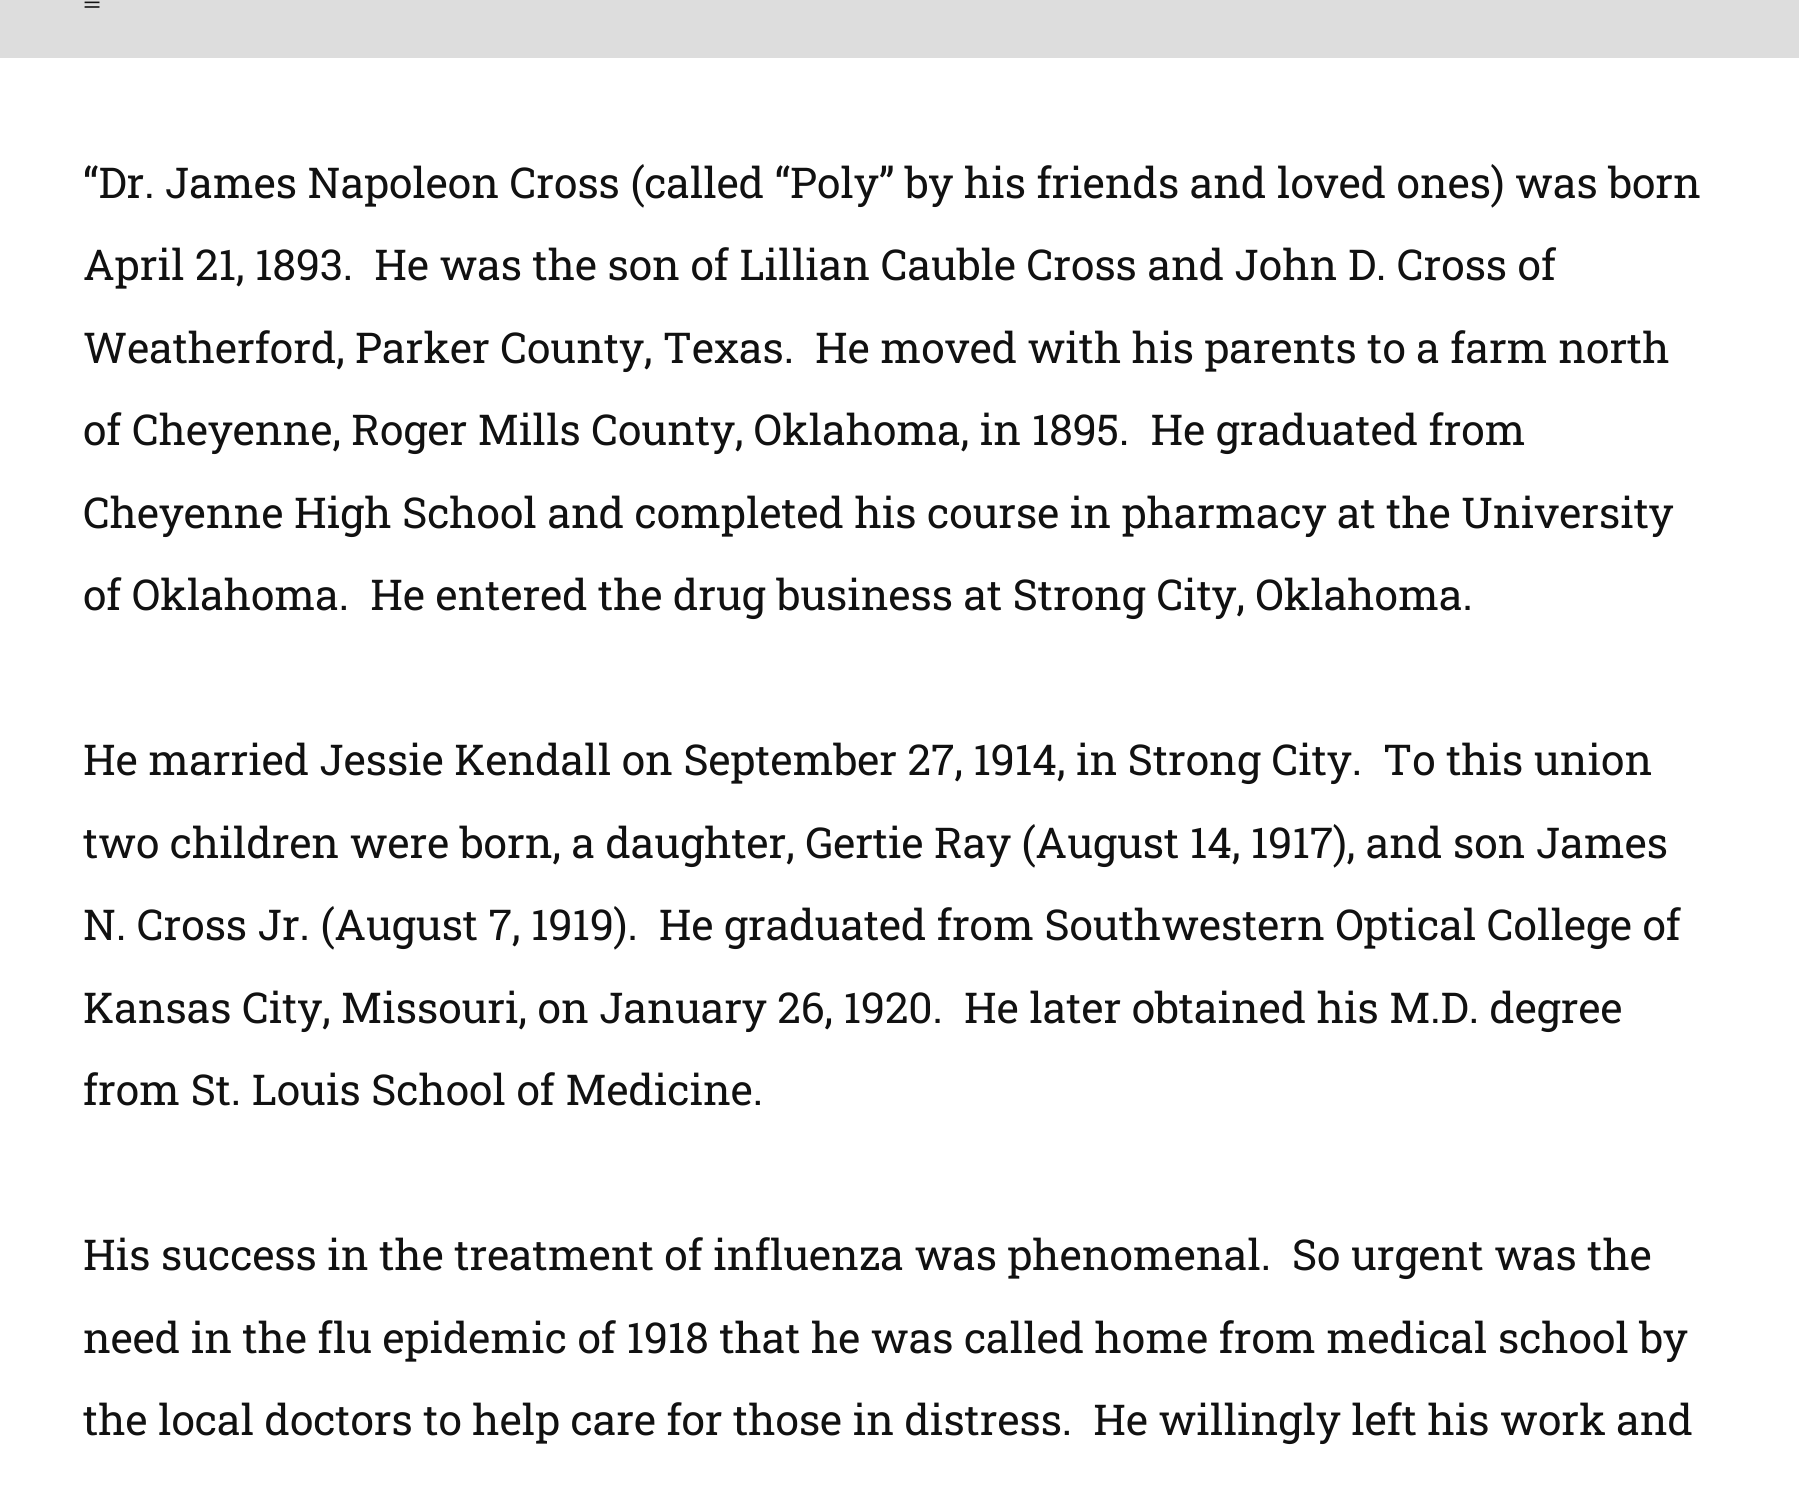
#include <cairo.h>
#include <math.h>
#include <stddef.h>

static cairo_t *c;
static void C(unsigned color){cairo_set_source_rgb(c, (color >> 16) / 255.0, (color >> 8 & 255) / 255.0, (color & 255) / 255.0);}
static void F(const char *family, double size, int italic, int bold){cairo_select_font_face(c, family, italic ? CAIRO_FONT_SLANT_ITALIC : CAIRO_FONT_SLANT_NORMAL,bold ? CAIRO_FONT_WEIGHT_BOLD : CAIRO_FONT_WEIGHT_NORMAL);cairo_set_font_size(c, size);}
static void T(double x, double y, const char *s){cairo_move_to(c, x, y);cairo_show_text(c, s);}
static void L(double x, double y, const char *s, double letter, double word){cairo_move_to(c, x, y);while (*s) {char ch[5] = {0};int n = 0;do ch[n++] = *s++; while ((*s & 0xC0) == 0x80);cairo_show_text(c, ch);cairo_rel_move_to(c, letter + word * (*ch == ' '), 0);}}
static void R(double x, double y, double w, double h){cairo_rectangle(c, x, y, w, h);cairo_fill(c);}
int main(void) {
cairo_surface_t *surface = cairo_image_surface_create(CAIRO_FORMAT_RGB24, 1799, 1509);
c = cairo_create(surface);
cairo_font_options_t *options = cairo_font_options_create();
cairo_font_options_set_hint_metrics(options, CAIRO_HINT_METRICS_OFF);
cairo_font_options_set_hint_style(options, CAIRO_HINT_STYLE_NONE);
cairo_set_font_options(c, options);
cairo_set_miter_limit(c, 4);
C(0xffffff);
cairo_paint(c);
C(0xdddddd);
R(0,0,1799,58);
F("Liberation Serif",32,0,0);
C(0x111111);
L(83,13,"≡",2,0);
F("Roboto Slab",42.5,0,0);
T(83,198,"“Dr. James Napoleon Cross (called “Poly” by his friends and loved ones) was born");
T(83,280,"April 21, 1893.  He was the son of Lillian Cauble Cross and John D. Cross of");
T(83,363,"Weatherford, Parker County, Texas.  He moved with his parents to a farm north");
T(83,445,"of Cheyenne, Roger Mills County, Oklahoma, in 1895.  He graduated from");
T(83,528,"Cheyenne High School and completed his course in pharmacy at the University");
T(83,610,"of Oklahoma.  He entered the drug business at Strong City, Oklahoma.");
T(83,775,"He married Jessie Kendall on September 27, 1914, in Strong City.  To this union");
T(83,858,"two children were born, a daughter, Gertie Ray (August 14, 1917), and son James");
T(83,940,"N. Cross Jr. (August 7, 1919).  He graduated from Southwestern Optical College of");
T(83,1023,"Kansas City, Missouri, on January 26, 1920.  He later obtained his M.D. degree");
T(83,1105,"from St. Louis School of Medicine.");
T(83,1270,"His success in the treatment of influenza was phenomenal.  So urgent was the");
T(83,1353,"need in the flu epidemic of 1918 that he was called home from medical school by");
T(83,1435,"the local doctors to help care for those in distress.  He willingly left his work and");
cairo_surface_write_to_png(surface, "o.png");
cairo_font_options_destroy(options);
cairo_destroy(c);
cairo_surface_destroy(surface);
return 0;
}
